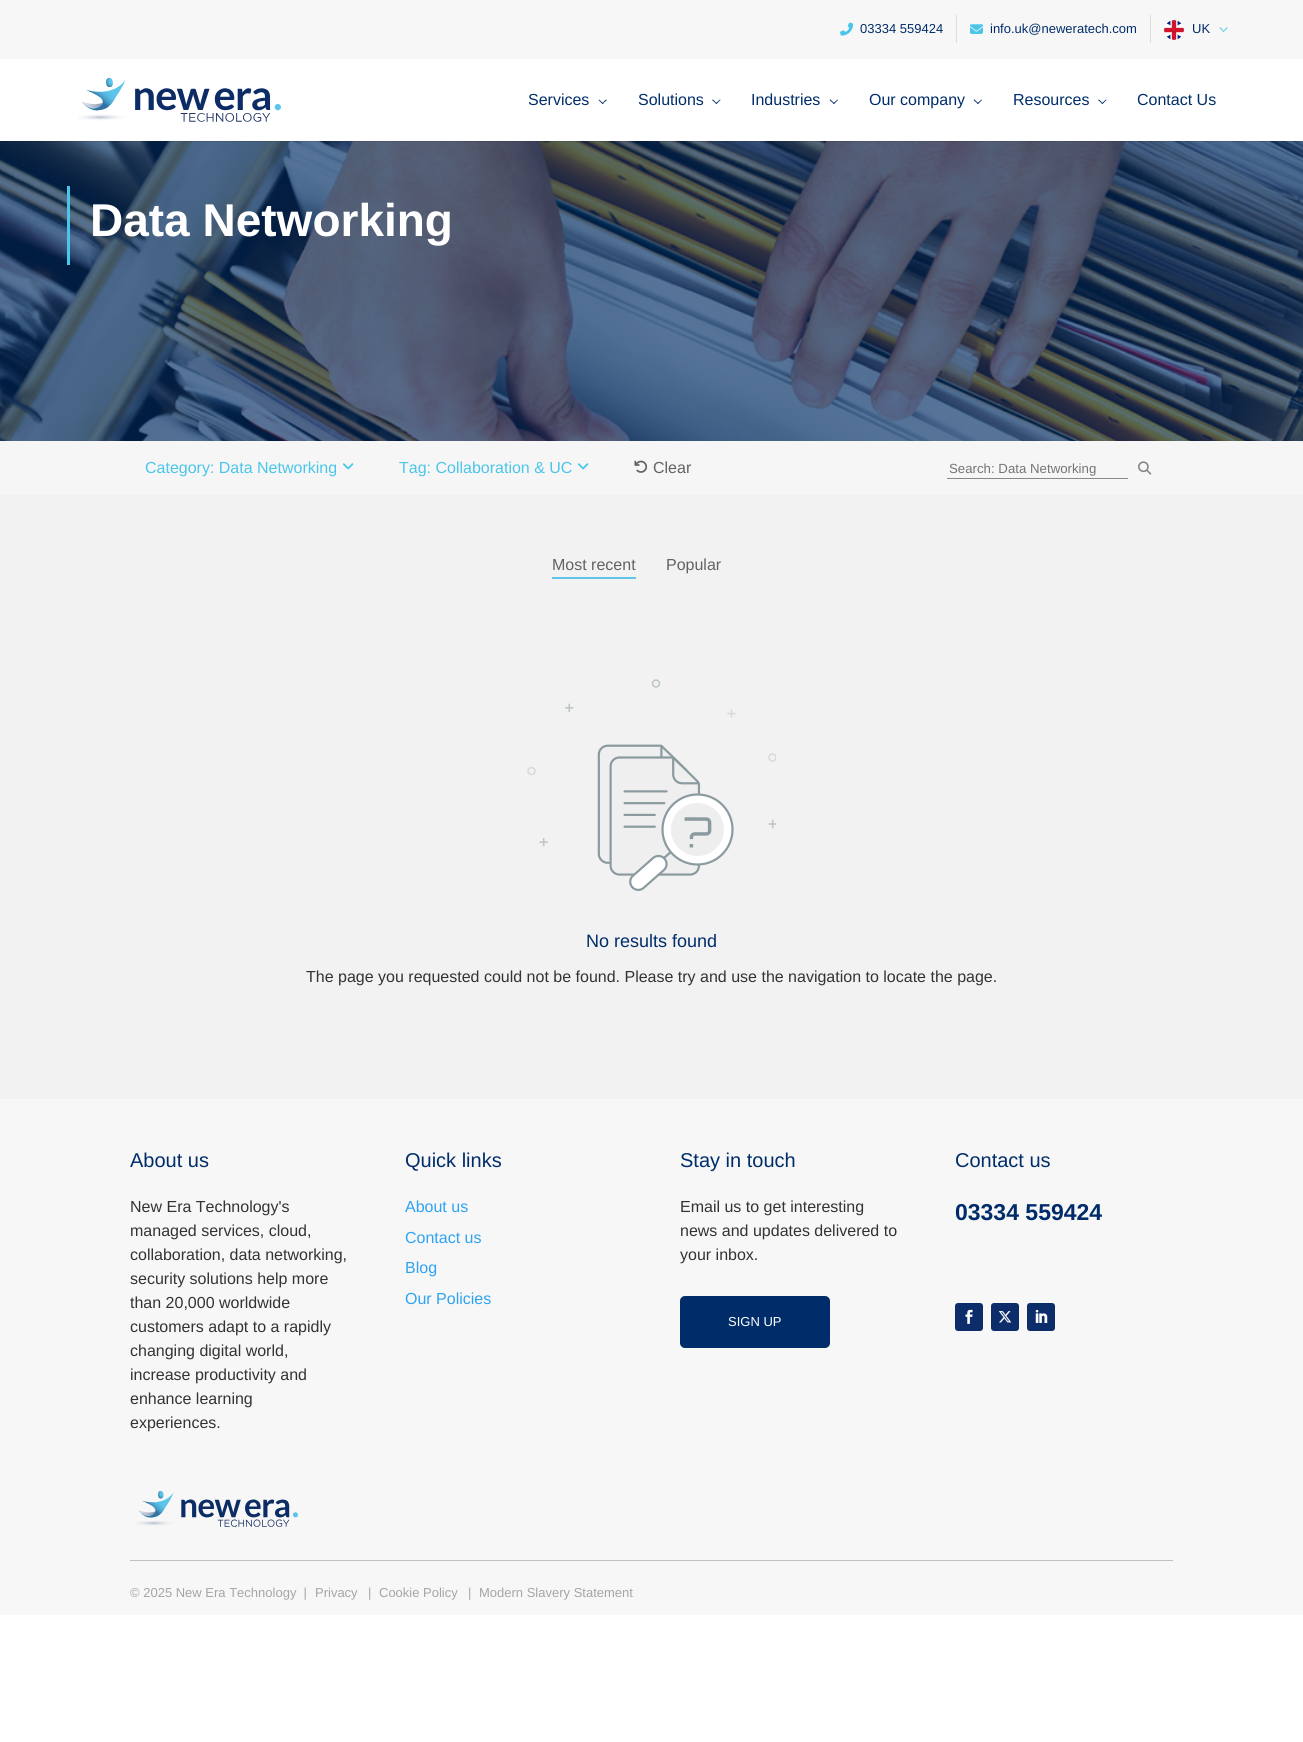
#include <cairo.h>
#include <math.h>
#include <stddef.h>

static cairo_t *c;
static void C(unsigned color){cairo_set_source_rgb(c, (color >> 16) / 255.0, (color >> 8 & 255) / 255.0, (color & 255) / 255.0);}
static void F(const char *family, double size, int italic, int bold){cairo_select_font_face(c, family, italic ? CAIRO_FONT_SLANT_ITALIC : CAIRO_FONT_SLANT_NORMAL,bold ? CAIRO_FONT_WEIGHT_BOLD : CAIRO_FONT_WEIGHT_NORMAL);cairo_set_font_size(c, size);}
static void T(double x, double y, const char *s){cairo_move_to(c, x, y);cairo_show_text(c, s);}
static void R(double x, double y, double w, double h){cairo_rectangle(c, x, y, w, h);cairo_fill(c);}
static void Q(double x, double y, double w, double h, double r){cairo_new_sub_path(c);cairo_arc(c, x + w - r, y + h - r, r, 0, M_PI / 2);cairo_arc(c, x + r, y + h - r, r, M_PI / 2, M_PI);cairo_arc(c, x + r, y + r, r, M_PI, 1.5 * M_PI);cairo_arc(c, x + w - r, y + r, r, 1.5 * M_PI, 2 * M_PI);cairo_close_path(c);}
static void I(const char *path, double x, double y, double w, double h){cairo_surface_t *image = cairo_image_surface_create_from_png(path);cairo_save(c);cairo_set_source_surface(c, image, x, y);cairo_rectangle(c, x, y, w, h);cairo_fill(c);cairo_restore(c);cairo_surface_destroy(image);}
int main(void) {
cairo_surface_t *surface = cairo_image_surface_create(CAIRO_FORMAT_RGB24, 1303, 1742);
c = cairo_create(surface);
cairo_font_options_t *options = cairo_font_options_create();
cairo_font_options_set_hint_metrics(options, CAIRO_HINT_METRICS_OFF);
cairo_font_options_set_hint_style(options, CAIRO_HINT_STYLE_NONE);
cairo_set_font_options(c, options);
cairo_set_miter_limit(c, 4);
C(0xffffff);
cairo_paint(c);
C(0xf7f7f7);
R(0,0,1303,59);
C(0xdddddd);
R(956,15,1,28);
I("1.png",840,22,14,14);
F("Liberation Sans",13,0,0);
C(0x002d6a);
T(860,33,"03334 559424");
C(0xdddddd);
R(1150,15,1,28);
I("2.png",970,24,13,10);
C(0x002d6a);
T(990,33,"info.uk@neweratech.com");
I("3.png",1164,20,20,20);
T(1192,33,"UK");
C(0x4ac6e9);
cairo_new_path(c);
cairo_move_to(c,1227.5,28);
cairo_line_to(c,1223.5,32);
cairo_line_to(c,1223,31.5);
cairo_line_to(c,1227,27);
cairo_close_path(c);
cairo_fill(c);
cairo_new_path(c);
cairo_move_to(c,1224,31.5);
cairo_line_to(c,1223.5,32);
cairo_line_to(c,1219.5,28);
cairo_line_to(c,1220,27);
cairo_close_path(c);
cairo_fill(c);
I("5.png",0,141,1303,300);
cairo_set_source_rgba(c,0,0,0,0.1);
R(0,141,1303,1);
I("4.png",78,78,203,44);
F("Liberation Sans",16,0,0);
C(0x002d6a);
T(528,105,"Services");
cairo_new_path(c);
cairo_move_to(c,607,100);
cairo_line_to(c,602.5,104);
cairo_line_to(c,602,103.5);
cairo_line_to(c,606,99.5);
cairo_close_path(c);
cairo_fill(c);
cairo_new_path(c);
cairo_move_to(c,603.5,103.5);
cairo_line_to(c,602.5,104);
cairo_line_to(c,598.5,100);
cairo_line_to(c,599,99.5);
cairo_close_path(c);
cairo_fill(c);
T(638,105,"Solutions");
cairo_new_path(c);
cairo_move_to(c,720.5,100);
cairo_line_to(c,716.5,104);
cairo_line_to(c,715.5,103.5);
cairo_line_to(c,720,99.5);
cairo_close_path(c);
cairo_fill(c);
cairo_new_path(c);
cairo_move_to(c,717,103.5);
cairo_line_to(c,716.5,104);
cairo_line_to(c,712,100);
cairo_line_to(c,713,99.5);
cairo_close_path(c);
cairo_fill(c);
T(751,105,"Industries");
cairo_new_path(c);
cairo_move_to(c,838,100);
cairo_line_to(c,834,104);
cairo_line_to(c,833,103.5);
cairo_line_to(c,837.5,99.5);
cairo_close_path(c);
cairo_fill(c);
cairo_new_path(c);
cairo_move_to(c,834.5,103.5);
cairo_line_to(c,834,104);
cairo_line_to(c,829.5,100);
cairo_line_to(c,830.5,99.5);
cairo_close_path(c);
cairo_fill(c);
T(869,105,"Our company");
cairo_new_path(c);
cairo_move_to(c,982,100);
cairo_line_to(c,978,104);
cairo_line_to(c,977,103.5);
cairo_line_to(c,981.5,99.5);
cairo_close_path(c);
cairo_fill(c);
cairo_new_path(c);
cairo_move_to(c,978.5,103.5);
cairo_line_to(c,978,104);
cairo_line_to(c,973.5,100);
cairo_line_to(c,974.5,99.5);
cairo_close_path(c);
cairo_fill(c);
T(1013,105,"Resources");
cairo_new_path(c);
cairo_move_to(c,1106.5,100);
cairo_line_to(c,1102.5,104);
cairo_line_to(c,1101.5,103.5);
cairo_line_to(c,1106,99.5);
cairo_close_path(c);
cairo_fill(c);
cairo_new_path(c);
cairo_move_to(c,1103,103.5);
cairo_line_to(c,1102.5,104);
cairo_line_to(c,1098,100);
cairo_line_to(c,1099,99.5);
cairo_close_path(c);
cairo_fill(c);
T(1137,105,"Contact Us");
C(0xf6f6f6);
R(0,441,1303,54);
C(0x4ac6e9);
R(67,186,3,79);
F("Liberation Sans",46,0,1);
C(0xffffff);
T(90,236,"Data Networking");
F("Liberation Sans",16,0,0);
C(0x4ac6e9);
T(145,473,"Category: Data Networking");
I("6.png",342,463,12,7);
T(399,473,"Tag: Collaboration & UC");
I("6.png",577,463,12,7);
I("7.png",634,460,14,13);
C(0x626262);
T(653,473,"Clear");
C(0x888888);
R(947,478,181,1);
F("Liberation Sans",13.25,0,0);
C(0x757575);
T(949,473,"Search: Data Networking");
I("8.png",1138,461,14,14);
C(0xf2f2f2);
R(0,495,1303,604);
C(0x62c6ea);
R(552,577,84,2);
F("Liberation Sans",16,0,0);
C(0x626262);
T(552,570,"Most recent");
T(666,570,"Popular");
I("9.png",527,679,249,212);
F("Liberation Sans",18,0,0);
C(0x002d6a);
T(586,947,"No results found");
F("Liberation Sans",16,0,0);
C(0x333333);
T(306,982,"The page you requested could not be found. Please try and use the navigation to locate the page.");
C(0xf7f7f7);
R(0,1099,1303,516);
C(0xc1c1c1);
R(130,1560,1043,1);
F("Liberation Sans",20,0,0);
C(0x002d6a);
T(130,1167,"About us");
F("Liberation Sans",16,0,0);
C(0x333333);
T(130,1212,"New Era Technology's");
T(130,1236,"managed services, cloud,");
T(130,1260,"collaboration, data networking,");
T(130,1284,"security solutions help more");
T(130,1308,"than 20,000 worldwide");
T(130,1332,"customers adapt to a rapidly");
T(130,1356,"changing digital world,");
T(130,1380,"increase productivity and");
T(130,1404,"enhance learning");
T(130,1428,"experiences.");
I("10.png",136,1491,162,36);
F("Liberation Sans",20,0,0);
C(0x002d6a);
T(405,1167,"Quick links");
F("Liberation Sans",16,0,0);
C(0x2ea3f2);
T(405,1212,"About us");
T(405,1243,"Contact us");
T(405,1273,"Blog");
T(405,1304,"Our Policies");
F("Liberation Sans",20,0,0);
C(0x002d6a);
T(680,1167,"Stay in touch");
F("Liberation Sans",16,0,0);
C(0x333333);
T(680,1212,"Email us to get interesting");
T(680,1236,"news and updates delivered to");
T(680,1260,"your inbox.");
C(0x002d6a);
Q(680,1296,150,52,5);
cairo_fill(c);
F("Liberation Sans",13,0,0);
C(0xffffff);
T(728,1326,"SIGN UP");
F("Liberation Sans",20,0,0);
C(0x002d6a);
T(955,1167,"Contact us");
F("Liberation Sans",23,0,1);
T(955,1220,"03334 559424");
C(0x0d2d6a);
Q(955,1303,28,28,3);
cairo_fill(c);
I("11.png",965,1309,8,15);
Q(991,1303,28,28,3);
cairo_fill(c);
I("12.png",998,1311,14,12);
Q(1027,1303,28,28,3);
cairo_fill(c);
I("13.png",1035,1309,13,14);
F("Liberation Sans",13,0,0);
C(0xa5a5a5);
T(130,1597,"© 2025 New Era Technology  |");
T(315,1597,"Privacy");
T(368,1597,"|");
T(379,1597,"Cookie Policy");
T(468,1597,"|");
T(479,1597,"Modern Slavery Statement");
cairo_surface_write_to_png(surface, "o.png");
cairo_font_options_destroy(options);
cairo_destroy(c);
cairo_surface_destroy(surface);
return 0;
}
